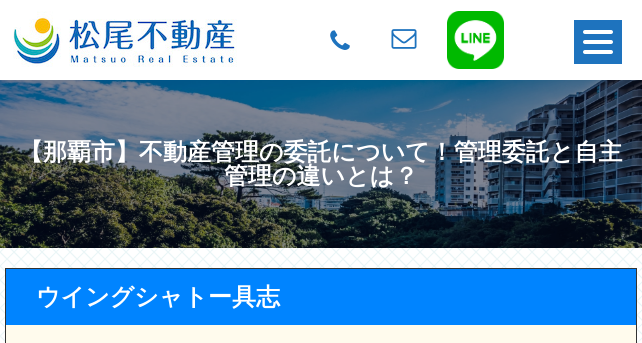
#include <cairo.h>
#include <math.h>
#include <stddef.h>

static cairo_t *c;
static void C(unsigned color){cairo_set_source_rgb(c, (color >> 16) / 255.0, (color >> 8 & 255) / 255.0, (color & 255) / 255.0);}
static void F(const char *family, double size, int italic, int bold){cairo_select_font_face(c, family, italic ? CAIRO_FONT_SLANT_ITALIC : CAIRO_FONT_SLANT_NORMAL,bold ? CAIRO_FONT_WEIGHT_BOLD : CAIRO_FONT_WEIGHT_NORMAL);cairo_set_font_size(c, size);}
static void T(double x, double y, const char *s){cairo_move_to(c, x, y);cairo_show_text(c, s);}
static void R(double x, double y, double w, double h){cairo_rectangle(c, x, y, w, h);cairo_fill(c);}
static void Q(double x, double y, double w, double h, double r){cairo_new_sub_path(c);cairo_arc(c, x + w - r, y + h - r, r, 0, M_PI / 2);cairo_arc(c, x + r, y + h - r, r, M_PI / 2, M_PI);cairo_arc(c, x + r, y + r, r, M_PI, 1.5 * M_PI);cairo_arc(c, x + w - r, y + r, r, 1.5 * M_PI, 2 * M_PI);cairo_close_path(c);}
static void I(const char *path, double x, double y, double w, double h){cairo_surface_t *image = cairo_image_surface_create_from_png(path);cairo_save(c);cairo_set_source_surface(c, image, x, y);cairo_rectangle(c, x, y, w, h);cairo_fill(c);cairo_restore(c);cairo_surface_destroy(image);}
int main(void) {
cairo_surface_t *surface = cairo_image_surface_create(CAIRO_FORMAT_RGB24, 642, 343);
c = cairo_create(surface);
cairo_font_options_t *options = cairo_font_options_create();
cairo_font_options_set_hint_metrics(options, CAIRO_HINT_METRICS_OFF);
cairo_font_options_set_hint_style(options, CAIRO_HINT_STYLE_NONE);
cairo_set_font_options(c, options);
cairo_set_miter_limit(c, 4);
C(0xffffff);
cairo_paint(c);
I("1.png",0,248,642,95);
I("2.png",13,11,224,56);
I("3.png",330,30,20,20);
I("4.png",391,29,26,20);
I("5.png",447,11,57,58);
C(0x1e73be);
R(574,20,48,44);
C(0xffffff);
Q(583,30,30,4,2);
cairo_fill(c);
Q(583,40,30,4,2);
cairo_fill(c);
Q(583,50,30,4,2);
cairo_fill(c);
I("6.png",0,80,642,168);
F("WenQuanYi Zen Hei",24,0,1);
T(19,160,"【那覇市】不動産管理の委託について！管理委託と自主");
T(224,184,"管理の違いとは？");
C(0x0084ff);
R(6,269,630,56);
C(0x333333);
R(5,268,632,1);
R(636,268,1,75);
R(5,268,1,75);
C(0xffffff);
T(36,305,"ウイングシャトー具志");
C(0xfffbed);
R(6,325,630,18);
cairo_surface_write_to_png(surface, "o.png");
cairo_font_options_destroy(options);
cairo_destroy(c);
cairo_surface_destroy(surface);
return 0;
}
